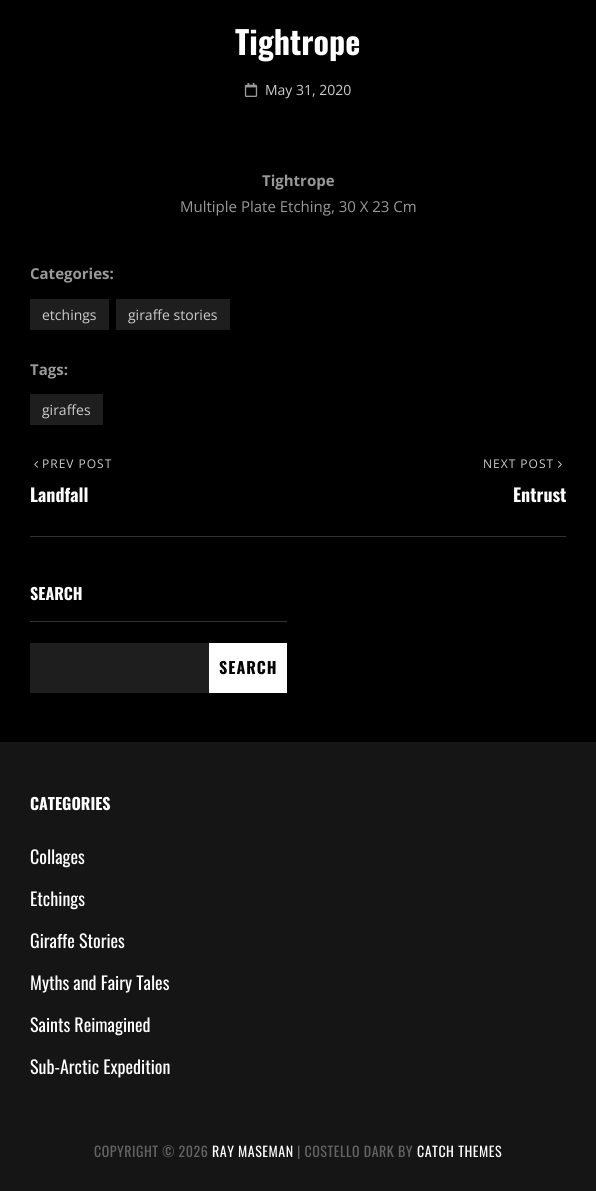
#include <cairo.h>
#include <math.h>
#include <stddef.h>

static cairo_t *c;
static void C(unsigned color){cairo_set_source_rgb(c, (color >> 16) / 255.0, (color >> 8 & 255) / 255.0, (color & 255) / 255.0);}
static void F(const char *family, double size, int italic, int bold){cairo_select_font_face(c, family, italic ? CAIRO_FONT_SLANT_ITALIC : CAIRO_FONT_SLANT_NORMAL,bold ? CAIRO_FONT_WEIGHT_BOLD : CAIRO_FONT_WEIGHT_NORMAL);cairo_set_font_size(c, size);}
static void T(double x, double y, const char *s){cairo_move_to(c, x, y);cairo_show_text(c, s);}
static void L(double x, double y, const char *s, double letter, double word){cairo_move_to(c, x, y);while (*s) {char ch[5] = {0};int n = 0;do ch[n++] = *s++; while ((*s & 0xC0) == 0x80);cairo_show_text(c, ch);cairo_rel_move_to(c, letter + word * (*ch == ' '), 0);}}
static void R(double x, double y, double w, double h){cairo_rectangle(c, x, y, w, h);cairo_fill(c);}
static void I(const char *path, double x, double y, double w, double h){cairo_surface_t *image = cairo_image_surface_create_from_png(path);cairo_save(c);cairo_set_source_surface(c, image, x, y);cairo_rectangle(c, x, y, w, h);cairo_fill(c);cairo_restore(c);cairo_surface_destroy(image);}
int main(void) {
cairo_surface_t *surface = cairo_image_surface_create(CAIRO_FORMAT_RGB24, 596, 1191);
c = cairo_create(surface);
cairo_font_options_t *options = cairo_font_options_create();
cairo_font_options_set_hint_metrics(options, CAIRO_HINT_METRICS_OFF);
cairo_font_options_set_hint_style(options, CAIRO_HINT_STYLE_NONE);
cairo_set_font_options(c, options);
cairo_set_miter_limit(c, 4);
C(0x000000);
cairo_paint(c);
F("Oswald",32,0,1);
C(0xffffff);
T(235,55,"Tightrope");
I("1.png",244,83,14,14);
F("Open Sans",14,0,0);
C(0xcccccc);
T(265,95,"May 31, 2020");
F("Open Sans",15,0,1);
C(0x999999);
T(262,186,"Tightrope");
F("Open Sans",15,0,0);
T(180,212,"Multiple Plate Etching, 30 X 23 Cm");
F("Open Sans",15,0,1);
T(30,279,"Categories:");
C(0x1e1e1e);
R(30,299,79,31);
F("Open Sans",14,0,0);
C(0xcccccc);
T(42,320,"etchings");
C(0x1e1e1e);
R(116,299,114,31);
C(0xcccccc);
T(128,320,"giraffe stories");
F("Open Sans",15,0,1);
C(0x999999);
T(30,375,"Tags:");
C(0x1e1e1e);
R(30,394,73,31);
F("Open Sans",14,0,0);
C(0xcccccc);
T(42,415,"giraffes");
C(0x323232);
R(30,536,536,1);
I("2.png",34,461,4,7);
F("Open Sans",12,0,0);
C(0xcccccc);
L(42,468,"PREV POST",1,0);
F("Oswald",18,0,1);
C(0xffffff);
T(30,502,"Landfall");
F("Open Sans",12,0,0);
C(0xcccccc);
L(483,468,"NEXT POST",1,0);
I("3.png",558,461,4,7);
F("Oswald",18,0,1);
C(0xffffff);
T(513,502,"Entrust");
C(0x323232);
R(30,621,257,1);
F("Oswald",16,0,1);
C(0xffffff);
T(30,600,"SEARCH");
C(0x1e1e1e);
R(30,643,179,50);
C(0xffffff);
R(209,643,78,50);
C(0x000000);
L(219,674,"SEARCH",1,0);
C(0x151515);
R(0,742,596,449);
C(0xffffff);
T(30,810,"CATEGORIES");
F("Oswald",18,0,0);
T(30,864,"Collages");
T(30,906,"Etchings");
T(30,948,"Giraffe Stories");
T(30,990,"Myths and Fairy Tales");
T(30,1032,"Saints Reimagined");
T(30,1074,"Sub-Arctic Expedition");
F("Oswald",14,0,0);
C(0x646464);
L(94,1157,"COPYRIGHT © 2026",.5,0);
C(0xffffff);
L(212,1157,"RAY MASEMAN",.5,0);
C(0x646464);
L(297,1157,"| COSTELLO DARK BY",.5,0);
C(0xffffff);
L(417,1157,"CATCH THEMES",.5,0);
cairo_surface_write_to_png(surface, "o.png");
cairo_font_options_destroy(options);
cairo_destroy(c);
cairo_surface_destroy(surface);
return 0;
}
